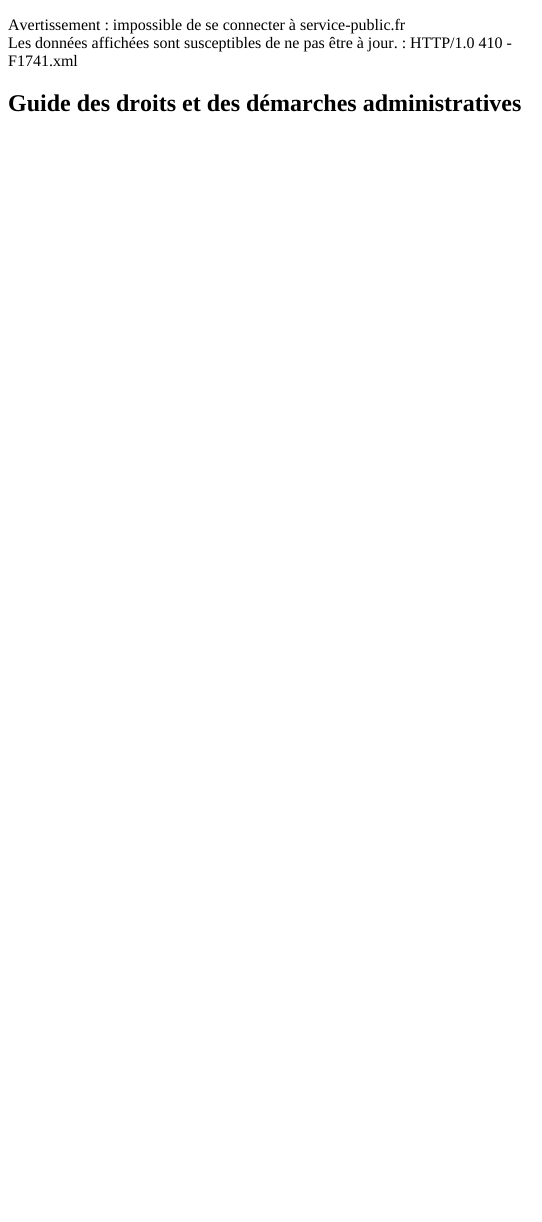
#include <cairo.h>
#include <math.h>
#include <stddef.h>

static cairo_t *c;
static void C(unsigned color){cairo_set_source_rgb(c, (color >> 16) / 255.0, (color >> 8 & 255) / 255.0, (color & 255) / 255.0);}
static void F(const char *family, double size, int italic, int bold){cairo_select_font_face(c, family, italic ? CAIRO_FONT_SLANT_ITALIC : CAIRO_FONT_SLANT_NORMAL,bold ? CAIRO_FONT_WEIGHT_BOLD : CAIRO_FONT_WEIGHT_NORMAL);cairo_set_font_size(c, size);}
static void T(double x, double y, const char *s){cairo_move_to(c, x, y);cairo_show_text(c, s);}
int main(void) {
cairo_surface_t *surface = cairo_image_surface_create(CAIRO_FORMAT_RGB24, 542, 1222);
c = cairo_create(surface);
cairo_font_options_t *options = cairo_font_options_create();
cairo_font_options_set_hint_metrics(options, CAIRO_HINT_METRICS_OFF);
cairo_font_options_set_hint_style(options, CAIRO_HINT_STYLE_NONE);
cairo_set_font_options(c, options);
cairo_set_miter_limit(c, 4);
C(0xffffff);
cairo_paint(c);
F("Liberation Serif",16,0,0);
C(0x000000);
T(8,30,"Avertissement : impossible de se connecter à service-public.fr");
T(8,48,"Les données affichées sont susceptibles de ne pas être à jour. : HTTP/1.0 410 -");
T(8,66,"F1741.xml");
F("Liberation Serif",24,0,1);
T(8,111,"Guide des droits et des démarches administratives");
cairo_surface_write_to_png(surface, "o.png");
cairo_font_options_destroy(options);
cairo_destroy(c);
cairo_surface_destroy(surface);
return 0;
}
